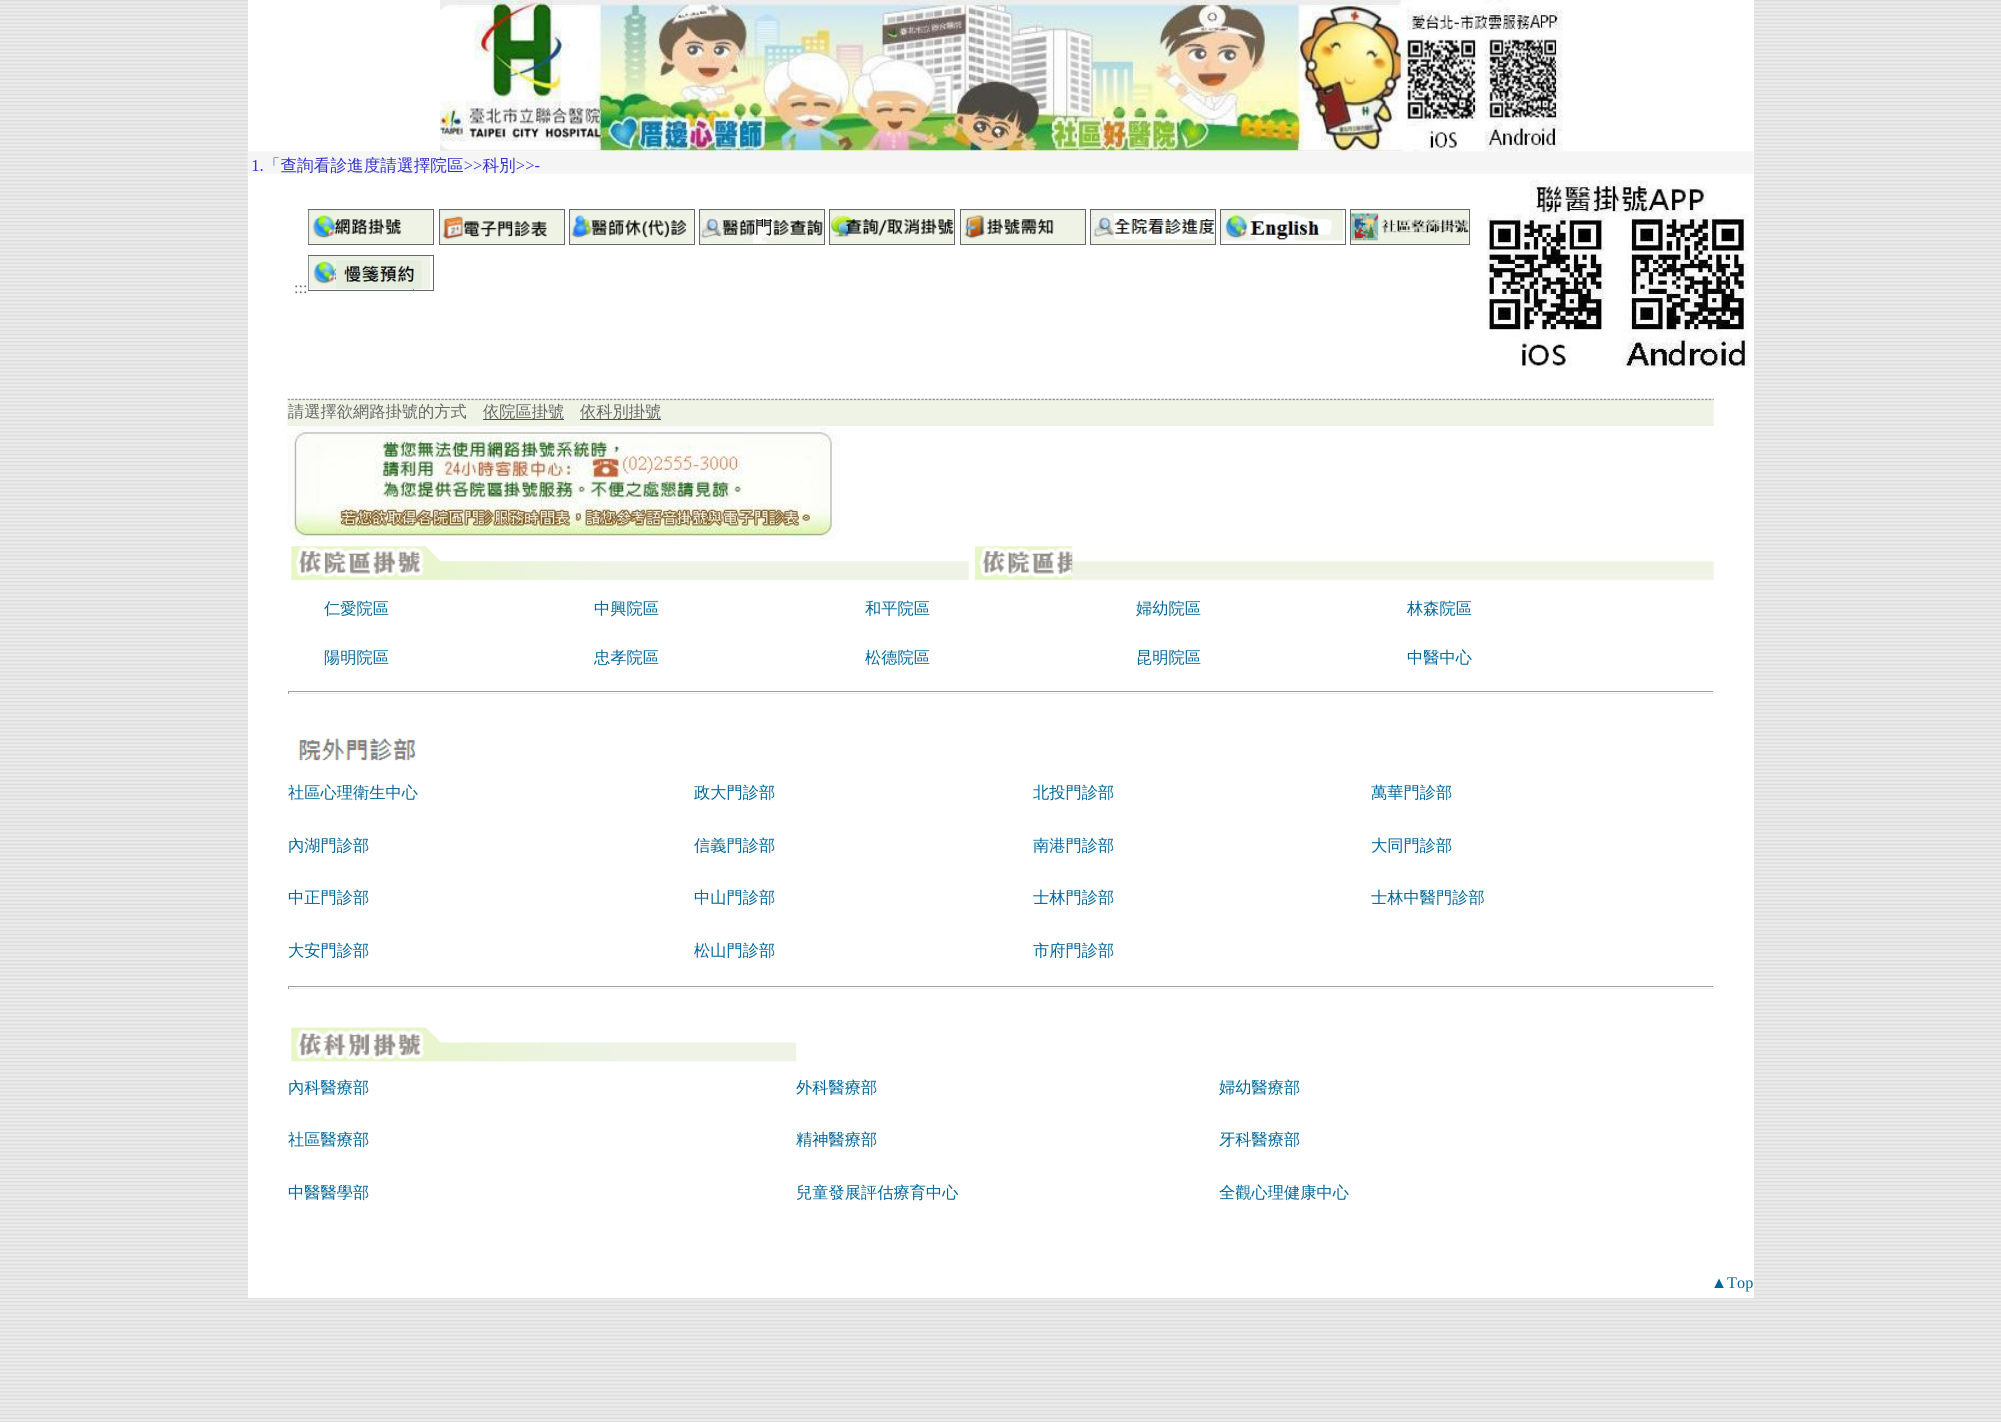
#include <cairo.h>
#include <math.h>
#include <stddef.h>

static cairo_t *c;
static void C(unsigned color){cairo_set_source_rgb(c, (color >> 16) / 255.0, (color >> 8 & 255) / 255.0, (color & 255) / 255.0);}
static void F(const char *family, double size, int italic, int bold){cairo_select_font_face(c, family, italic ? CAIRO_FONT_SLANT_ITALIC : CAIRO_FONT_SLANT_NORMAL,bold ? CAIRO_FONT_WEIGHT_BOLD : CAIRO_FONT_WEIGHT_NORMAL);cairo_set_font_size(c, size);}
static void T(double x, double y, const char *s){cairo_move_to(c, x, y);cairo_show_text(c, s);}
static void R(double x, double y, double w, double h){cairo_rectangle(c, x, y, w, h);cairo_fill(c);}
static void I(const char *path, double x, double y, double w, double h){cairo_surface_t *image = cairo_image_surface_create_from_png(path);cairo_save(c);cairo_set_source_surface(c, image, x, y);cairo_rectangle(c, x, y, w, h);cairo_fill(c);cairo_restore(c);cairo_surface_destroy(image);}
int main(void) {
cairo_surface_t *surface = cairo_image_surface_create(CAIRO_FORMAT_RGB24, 2001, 1422);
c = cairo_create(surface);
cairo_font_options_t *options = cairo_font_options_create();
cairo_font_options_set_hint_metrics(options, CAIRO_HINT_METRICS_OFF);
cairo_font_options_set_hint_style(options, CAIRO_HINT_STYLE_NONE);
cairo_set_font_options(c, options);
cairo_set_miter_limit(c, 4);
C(0xffffff);
cairo_paint(c);
I("1.png",0,0,2001,1422);
C(0xffffff);
R(248,0,1506,1298);
I("2.png",440,0,1123,152);
I("3.png",247,151,1507,23);
F("Liberation Serif",16.25,0,0);
C(0x666666);
T(294,293,":::");
cairo_rectangle(c,308.5,209.5,125,35);
cairo_set_line_width(c,1);
cairo_stroke(c);
cairo_rectangle(c,439.5,209.5,125,35);
cairo_stroke(c);
cairo_rectangle(c,569.5,209.5,125,35);
cairo_stroke(c);
cairo_rectangle(c,699.5,209.5,125,35);
cairo_stroke(c);
cairo_rectangle(c,829.5,209.5,125,35);
cairo_stroke(c);
cairo_rectangle(c,960.5,209.5,125,35);
cairo_stroke(c);
cairo_rectangle(c,1090.5,209.5,125,35);
cairo_stroke(c);
cairo_rectangle(c,1220.5,209.5,125,35);
cairo_stroke(c);
cairo_rectangle(c,1350.5,209.5,119,35);
cairo_stroke(c);
I("4.png",308,210,125,34);
I("5.png",440,210,124,34);
I("6.png",570,210,124,34);
I("7.png",700,210,124,34);
I("8.png",830,210,124,34);
I("9.png",961,210,124,34);
I("10.png",1091,210,124,34);
I("11.png",1221,210,124,34);
I("12.png",1351,210,118,34);
cairo_rectangle(c,308.5,255.5,125,35);
cairo_stroke(c);
I("13.png",308,256,122,34);
I("14.png",1487,180,262,188);
I("15.png",287,398,1427,28);
F("WenQuanYi Zen Hei Medium",16.25,0,0);
T(288,417,"請選擇欲網路掛號的方式");
C(0x006699);
R(483,419,81,1);
C(0x666666);
T(483,417,"依院區掛號");
C(0x006699);
R(580,419,81,1);
C(0x666666);
T(580,417,"依科別掛號");
I("16.png",287,426,553,114);
I("17.png",291,546,782,35);
I("18.png",1072,546,642,35);
C(0x006699);
T(324,614,"仁愛院區");
T(594,614,"中興院區");
T(865,614,"和平院區");
T(1136,614,"婦幼院區");
T(1407,614,"林森院區");
T(324,663,"陽明院區");
T(594,663,"忠孝院區");
T(865,663,"松德院區");
T(1136,663,"昆明院區");
T(1407,663,"中醫中心");
C(0x9f9f9f);
R(288,691,1426,1);
C(0xeeeeee);
R(1713,691,1,3);
R(288,693,1426,1);
C(0x9f9f9f);
R(288,691,1,3);
I("19.png",298,738,118,23);
C(0x006699);
T(288,798,"社區心理衛生中心");
T(694,798,"政大門診部");
T(1033,798,"北投門診部");
T(1371,798,"萬華門診部");
T(288,851,"內湖門診部");
T(694,851,"信義門診部");
T(1033,851,"南港門診部");
T(1371,851,"大同門診部");
T(288,903,"中正門診部");
T(694,903,"中山門診部");
T(1033,903,"士林門診部");
T(1371,903,"士林中醫門診部");
T(288,956,"大安門診部");
T(694,956,"松山門診部");
T(1033,956,"市府門診部");
C(0x9f9f9f);
R(288,986,1426,1);
C(0xeeeeee);
R(1713,986,1,3);
R(288,988,1426,1);
C(0x9f9f9f);
R(288,986,1,3);
I("20.png",291,1027,506,35);
C(0x006699);
T(288,1093,"內科醫療部");
T(796,1093,"外科醫療部");
T(1219,1093,"婦幼醫療部");
T(288,1145,"社區醫療部");
T(796,1145,"精神醫療部");
T(1219,1145,"牙科醫療部");
T(288,1198,"中醫醫學部");
T(796,1198,"兒童發展評估療育中心");
T(1219,1198,"全觀心理健康中心");
F("Liberation Serif",16.25,0,0);
T(1711,1288,"▲Top");
cairo_surface_write_to_png(surface, "o.png");
cairo_font_options_destroy(options);
cairo_destroy(c);
cairo_surface_destroy(surface);
return 0;
}
